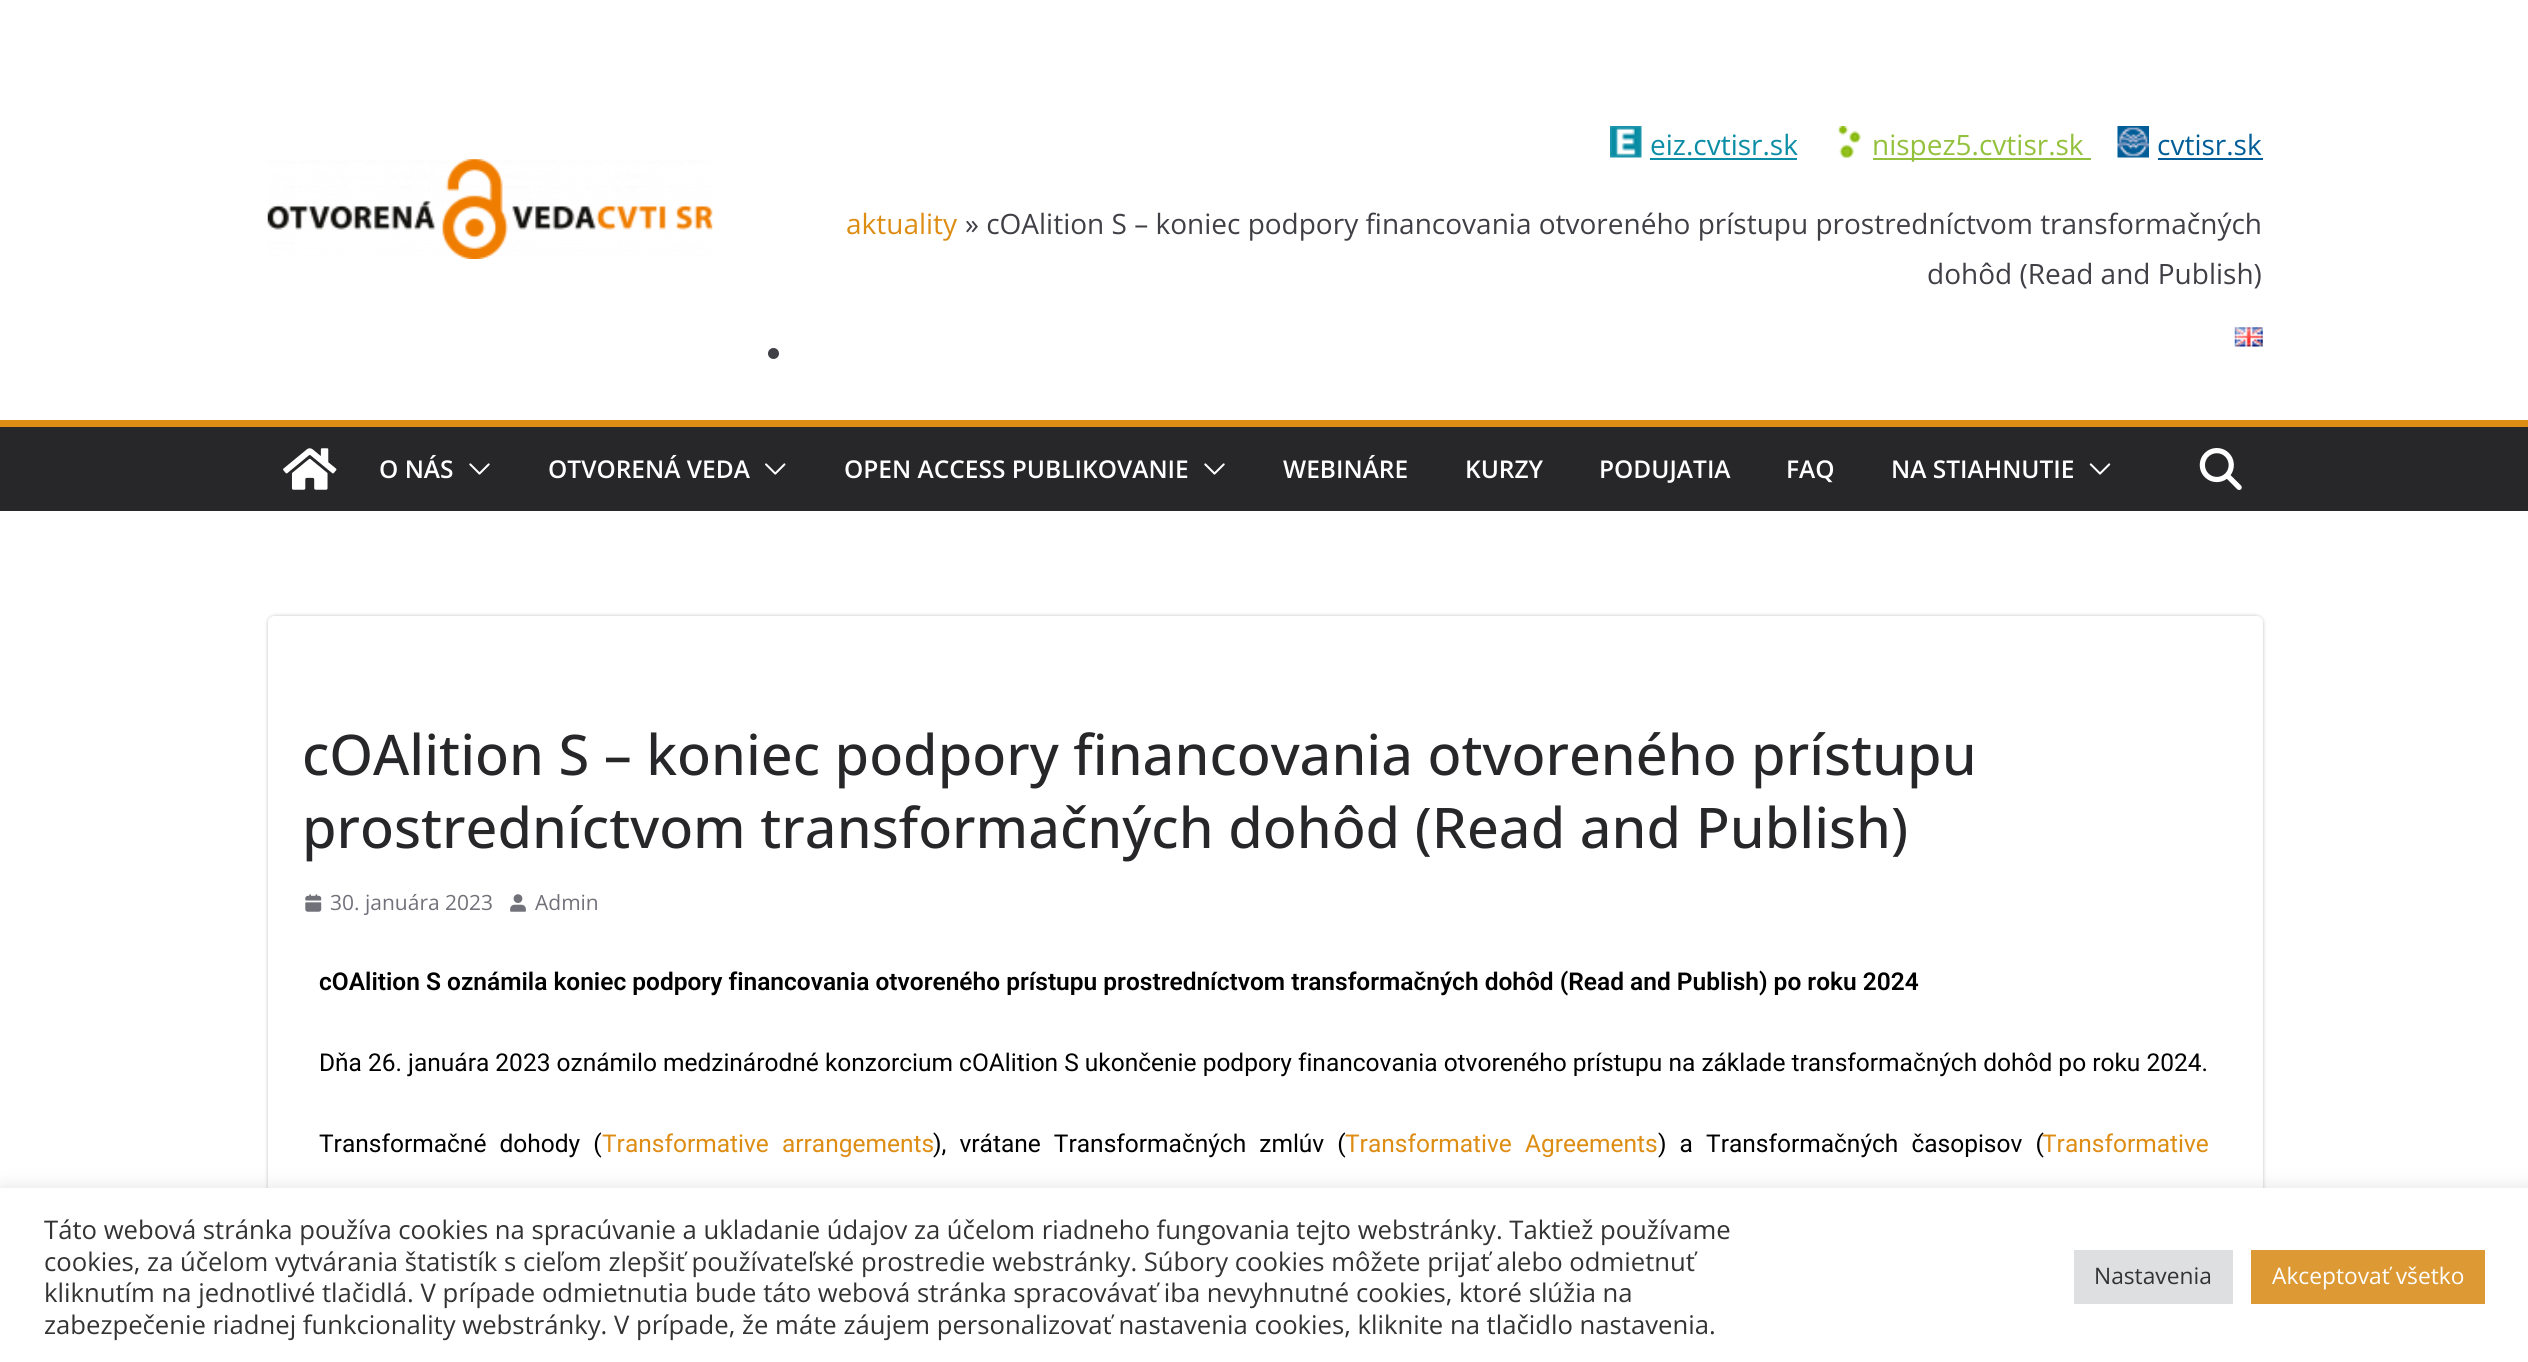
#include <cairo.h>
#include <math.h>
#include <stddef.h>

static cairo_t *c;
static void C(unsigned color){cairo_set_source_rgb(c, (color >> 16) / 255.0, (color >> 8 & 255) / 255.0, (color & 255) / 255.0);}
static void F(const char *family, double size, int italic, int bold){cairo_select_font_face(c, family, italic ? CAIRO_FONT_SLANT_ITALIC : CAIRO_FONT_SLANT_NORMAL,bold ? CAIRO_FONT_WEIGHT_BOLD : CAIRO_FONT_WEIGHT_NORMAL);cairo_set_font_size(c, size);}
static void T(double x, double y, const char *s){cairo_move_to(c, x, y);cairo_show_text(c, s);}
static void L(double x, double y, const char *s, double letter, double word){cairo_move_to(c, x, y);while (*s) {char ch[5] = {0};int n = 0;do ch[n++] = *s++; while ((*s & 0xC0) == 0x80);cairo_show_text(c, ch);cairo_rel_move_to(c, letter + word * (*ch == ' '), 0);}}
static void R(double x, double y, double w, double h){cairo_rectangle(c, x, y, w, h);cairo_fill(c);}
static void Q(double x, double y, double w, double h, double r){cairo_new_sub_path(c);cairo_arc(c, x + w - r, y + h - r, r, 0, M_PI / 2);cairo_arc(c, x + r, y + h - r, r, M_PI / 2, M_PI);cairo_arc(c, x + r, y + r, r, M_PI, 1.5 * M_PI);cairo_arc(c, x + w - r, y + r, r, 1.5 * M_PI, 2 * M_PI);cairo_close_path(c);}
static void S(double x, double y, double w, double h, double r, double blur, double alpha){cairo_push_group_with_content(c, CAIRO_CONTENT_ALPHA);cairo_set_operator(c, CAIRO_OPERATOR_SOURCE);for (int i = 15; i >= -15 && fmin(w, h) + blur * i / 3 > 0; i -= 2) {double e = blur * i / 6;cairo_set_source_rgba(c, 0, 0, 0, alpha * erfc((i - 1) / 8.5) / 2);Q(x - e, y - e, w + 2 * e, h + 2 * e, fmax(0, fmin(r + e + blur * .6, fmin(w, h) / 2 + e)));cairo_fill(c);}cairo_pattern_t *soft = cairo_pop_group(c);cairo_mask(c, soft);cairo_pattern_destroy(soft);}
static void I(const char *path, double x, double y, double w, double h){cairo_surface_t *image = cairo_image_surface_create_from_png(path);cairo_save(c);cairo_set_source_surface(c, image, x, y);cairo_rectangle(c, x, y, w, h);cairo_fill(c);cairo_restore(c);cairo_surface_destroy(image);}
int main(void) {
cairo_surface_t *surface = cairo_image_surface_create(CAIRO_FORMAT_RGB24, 2528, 1362);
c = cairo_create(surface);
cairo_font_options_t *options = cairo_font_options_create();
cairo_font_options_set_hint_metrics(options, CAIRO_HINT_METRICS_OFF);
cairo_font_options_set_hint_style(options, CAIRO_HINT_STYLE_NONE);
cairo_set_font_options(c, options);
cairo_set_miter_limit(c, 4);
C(0xffffff);
cairo_paint(c);
I("1.png",267,159,446,100);
I("2.png",1610,126,32,32);
F("Open Sans",28,0,0);
C(0x0b8da5);
T(1650,155,"eiz.cvtisr.sk");
R(1650,158,147,2);
I("3.png",1837,126,24,32);
C(0x94c13d);
R(1873,158,218,2);
T(1872,155,"nispez5.cvtisr.sk");
I("4.png",2117,126,32,32);
C(0x005d97);
T(2157,155,"cvtisr.sk");
R(2158,158,105,2);
C(0xdd8d13);
T(846,234,"aktuality");
C(0x3f3f46);
T(965,234,"» cOAlition S – koniec podpory financovania otvoreného prístupu prostredníctvom transformačných");
T(1927,284,"dohôd (Read and Publish)");
I("5.png",2234,327,29,20);
cairo_arc(c,773.5,353.5,5.5,0,2 * M_PI);
cairo_fill(c);
C(0x27272a);
R(0,427,2528,84);
C(0xdd8d13);
R(0,420,2528,7);
I("6.png",283,448,54,42);
F("Open Sans SemiBold",24.5,0,0);
C(0xffffff);
T(379,478,"O NÁS");
I("7.png",469,463,21,12);
T(548,478,"OTVORENÁ VEDA");
I("8.png",765,463,21,12);
T(844,478,"OPEN ACCESS PUBLIKOVANIE");
I("7.png",1204,463,21,12);
T(1283,478,"WEBINÁRE");
T(1465,478,"KURZY");
T(1599,478,"PODUJATIA");
T(1786,478,"FAQ");
T(1891,478,"NA STIAHNUTIE");
I("9.png",2089,463,22,12);
I("10.png",2199,448,43,42);
cairo_save(c);
cairo_set_fill_rule(c,CAIRO_FILL_RULE_EVEN_ODD);
cairo_new_path(c);
cairo_move_to(c,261,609);
cairo_line_to(c,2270,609);
cairo_line_to(c,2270,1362);
cairo_line_to(c,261,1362);
cairo_close_path(c);
cairo_move_to(c,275,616);
cairo_line_to(c,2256,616);
cairo_curve_to(c,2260,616,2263,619,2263,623);
cairo_line_to(c,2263,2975);
cairo_curve_to(c,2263,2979,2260,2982,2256,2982);
cairo_line_to(c,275,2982);
cairo_curve_to(c,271,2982,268,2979,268,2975);
cairo_line_to(c,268,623);
cairo_curve_to(c,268,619,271,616,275,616);
cairo_close_path(c);
cairo_clip(c);
C(0x000000);
S(268,616,1995,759,7,2,.24);
cairo_restore(c);
F("Open Sans Medium",56,0,0);
C(0x27272a);
T(302,775,"cOAlition S – koniec podpory financovania otvoreného prístupu");
T(302,848,"prostredníctvom transformačných dohôd (Read and Publish)");
I("11.png",305,894,17,18);
F("Open Sans",21,0,0);
C(0x71717a);
T(330,910,"30. januára 2023");
I("12.png",510,894,16,18);
T(535,910,"Admin");
F("Roboto SemiBold",24.5,0,0);
C(0x000000);
T(319,990,"cOAlition S oznámila koniec podpory financovania otvoreného prístupu prostredníctvom transformačných dohôd (Read and Publish) po roku 2024");
F("Roboto",24.5,0,0);
T(319,1071,"Dňa 26. januára 2023 oznámilo medzinárodné konzorcium cOAlition S ukončenie podpory financovania otvoreného prístupu na základe transformačných dohôd po roku 2024.");
L(319,1152,"Transformačné dohody (",0,7);
C(0xdd8d13);
L(602,1152,"Transformative arrangements",0,7);
C(0x000000);
L(933,1152,"), vrátane Transformačných zmlúv (",0,7);
C(0xdd8d13);
L(1345,1152,"Transformative Agreements",0,7);
C(0x000000);
L(1658,1152,") a Transformačných časopisov (",0,7);
C(0xdd8d13);
T(2042,1152,"Transformative");
C(0xacabab);
S(0,1187,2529,175,0,9,.3);
C(0xffffff);
R(0,1188,2528,174);
F("Open Sans",25.67,0,0);
C(0x333333);
T(44,1239,"Táto webová stránka používa cookies na spracúvanie a ukladanie údajov za účelom riadneho fungovania tejto webstránky. Taktiež používame");
T(44,1271,"cookies, za účelom vytvárania štatistík s cieľom zlepšiť používateľské prostredie webstránky. Súbory cookies môžete prijať alebo odmietnuť");
T(44,1302,"kliknutím na jednotlivé tlačidlá. V prípade odmietnutia bude táto webová stránka spracovávať iba nevyhnutné cookies, ktoré slúžia na");
T(44,1334,"zabezpečenie riadnej funkcionality webstránky. V prípade, že máte záujem personalizovať nastavenia cookies, kliknite na tlačidlo nastavenia.");
C(0xdedfe0);
R(2074,1250,159,54);
F("Open Sans",22.75,0,0);
C(0x333333);
T(2094,1284,"Nastavenia");
C(0xdd9933);
R(2251,1250,234,54);
C(0xffffff);
T(2272,1284,"Akceptovať všetko");
cairo_surface_write_to_png(surface, "o.png");
cairo_font_options_destroy(options);
cairo_destroy(c);
cairo_surface_destroy(surface);
return 0;
}
